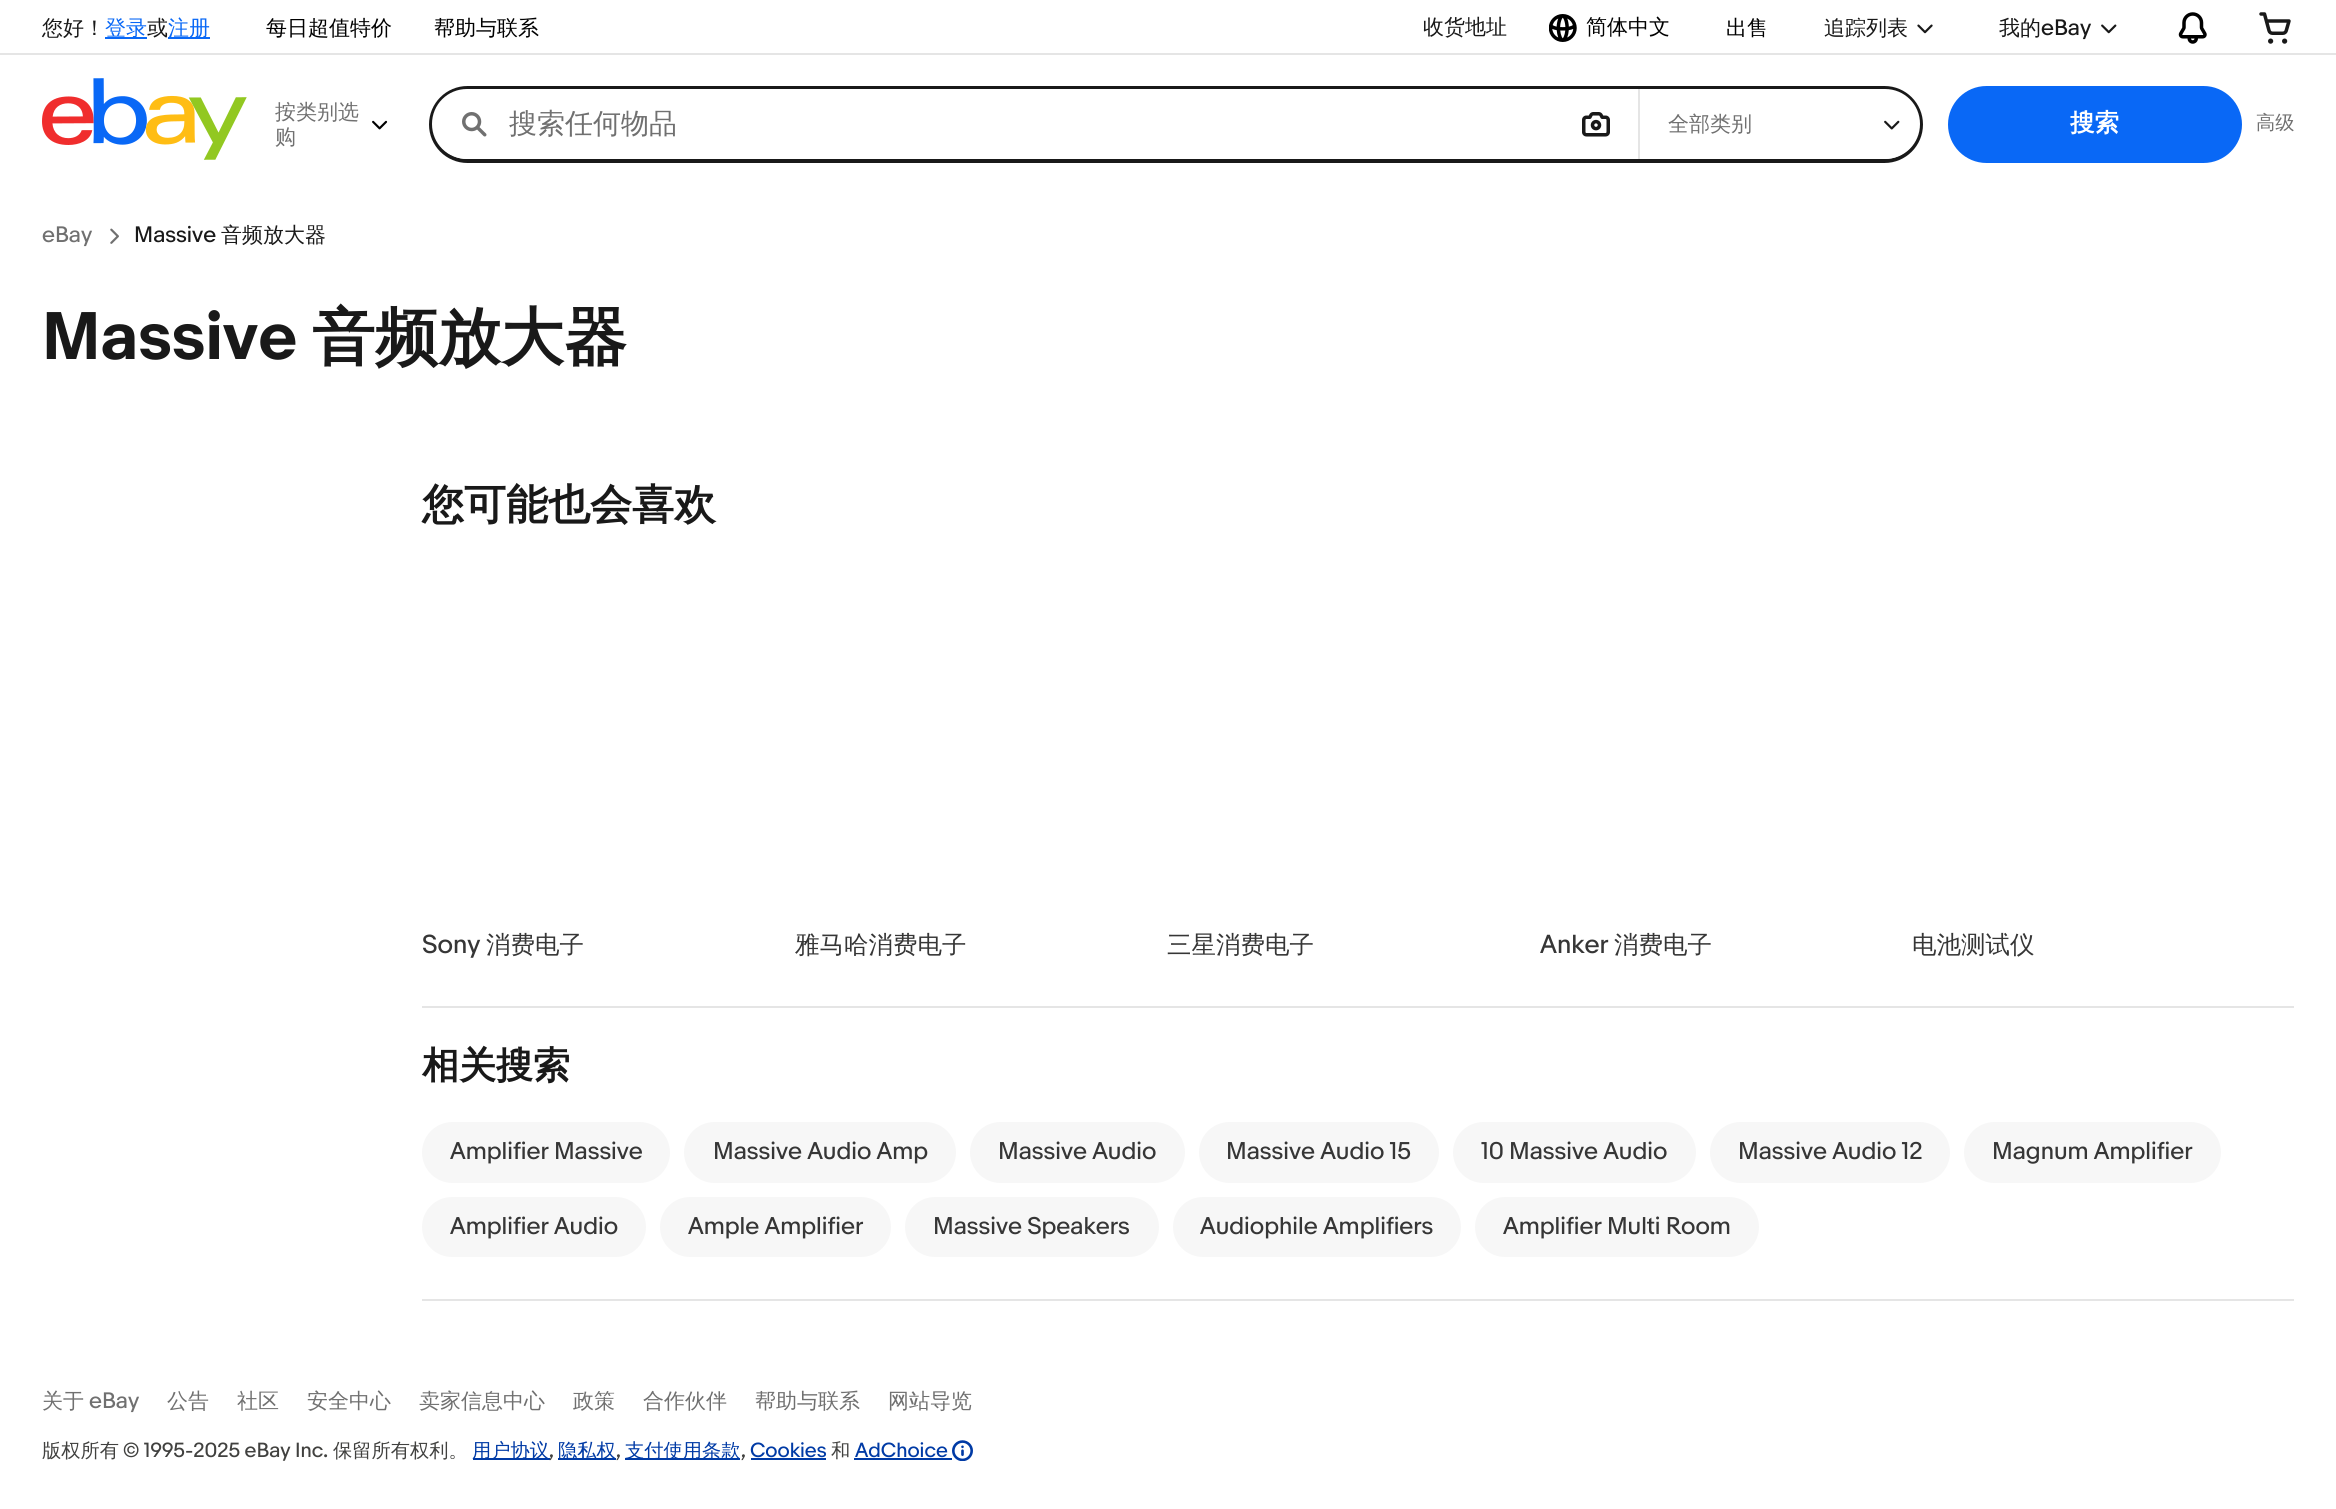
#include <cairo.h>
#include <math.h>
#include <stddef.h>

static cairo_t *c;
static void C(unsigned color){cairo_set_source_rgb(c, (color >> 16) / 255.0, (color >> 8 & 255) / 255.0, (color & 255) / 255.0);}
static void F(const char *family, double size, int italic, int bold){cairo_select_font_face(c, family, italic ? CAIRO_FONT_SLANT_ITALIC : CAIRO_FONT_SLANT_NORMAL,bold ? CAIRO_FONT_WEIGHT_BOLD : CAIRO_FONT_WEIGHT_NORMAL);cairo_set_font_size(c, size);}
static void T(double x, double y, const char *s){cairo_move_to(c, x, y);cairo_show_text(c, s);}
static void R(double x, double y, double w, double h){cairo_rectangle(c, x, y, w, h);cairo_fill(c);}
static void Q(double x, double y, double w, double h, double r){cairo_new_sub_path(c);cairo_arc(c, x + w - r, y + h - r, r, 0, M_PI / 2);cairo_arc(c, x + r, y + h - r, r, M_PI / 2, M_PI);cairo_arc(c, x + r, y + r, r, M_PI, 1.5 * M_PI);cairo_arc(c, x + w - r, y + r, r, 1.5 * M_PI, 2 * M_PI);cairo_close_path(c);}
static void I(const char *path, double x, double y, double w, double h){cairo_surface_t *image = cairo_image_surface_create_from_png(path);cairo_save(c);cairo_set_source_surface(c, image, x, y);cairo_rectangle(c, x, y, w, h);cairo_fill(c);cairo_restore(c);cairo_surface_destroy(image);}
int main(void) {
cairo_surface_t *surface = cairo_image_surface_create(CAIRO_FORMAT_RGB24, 2336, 1509);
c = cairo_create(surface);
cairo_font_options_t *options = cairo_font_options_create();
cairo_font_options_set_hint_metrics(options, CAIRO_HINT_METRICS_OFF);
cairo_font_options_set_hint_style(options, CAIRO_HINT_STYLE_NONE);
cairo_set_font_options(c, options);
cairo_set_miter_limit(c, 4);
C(0xffffff);
cairo_paint(c);
F("WenQuanYi Zen Hei Medium",21,0,0);
C(0x191919);
T(42,35,"您好！");
C(0x0968f6);
R(105,37,42,2);
T(105,35,"登录");
C(0x191919);
T(147,35,"或");
C(0x0968f6);
R(168,37,42,2);
T(168,35,"注册");
C(0x000000);
T(266,35,"每日超值特价");
T(434,35,"帮助与联系");
C(0x191919);
T(1423,34,"收货地址");
I("1.png",1549,14,28,28);
C(0x000000);
T(1586,34,"简体中文");
T(1726,35,"出售");
C(0x191919);
T(1824,35,"追踪列表");
I("2.png",1917,24,16,10);
T(1999,35,"我的");
F("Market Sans",21,0,0);
T(2041,35,"eBay");
I("3.png",2101,24,16,10);
I("4.png",2178,12,29,32);
I("5.png",2259,12,32,32);
I("6.png",42,78,205,82);
F("WenQuanYi Zen Hei Medium",21,0,0);
C(0x707070);
T(275,119,"按类别选");
T(275,144,"购");
I("7.png",372,120,16,10);
Q(431,88,1490,73,36.5);
C(0x191919);
cairo_set_line_width(c,4);
cairo_stroke(c);
C(0xe5e5e5);
R(1638,89,2,70);
C(0xffffff);
cairo_new_path(c);
cairo_move_to(c,467,89);
cairo_line_to(c,1638,89);
cairo_line_to(c,1638,159);
cairo_line_to(c,467,159);
cairo_curve_to(c,447.5,159,432,143.5,432,124);
cairo_curve_to(c,432,104.5,447.5,89,467,89);
cairo_close_path(c);
cairo_fill(c);
I("8.png",462,112,25,25);
F("WenQuanYi Zen Hei Medium",28,0,0);
C(0x707070);
T(509,133,"搜索任何物品");
I("9.png",1582,112,28,25);
C(0xffffff);
cairo_new_path(c);
cairo_move_to(c,1640,89);
cairo_line_to(c,1885,89);
cairo_curve_to(c,1904.5,89,1920,104.5,1920,124);
cairo_curve_to(c,1920,143.5,1904.5,159,1885,159);
cairo_line_to(c,1640,159);
cairo_close_path(c);
cairo_fill(c);
I("10.png",1884,120,16,10);
F("WenQuanYi Zen Hei Medium",21,0,0);
C(0x707070);
T(1668,131,"全部类别");
C(0x0968f6);
Q(1949,87,292,75,37.5);
cairo_fill_preserve(c);
cairo_set_line_width(c,2);
cairo_stroke(c);
F("WenQuanYi Zen Hei",24.5,0,1);
C(0xffffff);
T(2070,131,"搜索");
F("WenQuanYi Zen Hei Medium",19.25,0,0);
C(0x707070);
T(2256,129,"高级");
F("Market Sans",21,0,0);
T(42,242,"eBay");
I("11.png",110,228,9,16);
C(0x191919);
T(134,242,"Massive");
F("WenQuanYi Zen Hei Medium",21,0,0);
T(221,242,"音频放大器");
F("Market Sans",63,0,1);
T(42,359,"Massive");
F("WenQuanYi Zen Hei",63,0,1);
T(312,359,"音频放大器");
C(0xe5e5e5);
R(422,1006,1872,2);
F("WenQuanYi Zen Hei",42,0,1);
C(0x191919);
T(422,519,"您可能也会喜欢");
F("Market Sans",24.5,0,0);
C(0x363636);
T(422,953,"Sony");
F("WenQuanYi Zen Hei Medium",24.5,0,0);
T(486,953,"消费电子");
T(795,953,"雅马哈消费电子");
T(1167,953,"三星消费电子");
F("Market Sans",24.5,0,0);
T(1540,953,"Anker");
F("WenQuanYi Zen Hei Medium",24.5,0,0);
T(1614,953,"消费电子");
T(1912,953,"电池测试仪");
C(0xe5e5e5);
R(422,1299,1872,2);
F("WenQuanYi Zen Hei",37,0,1);
C(0x191919);
T(422,1078,"相关搜索");
C(0xf7f7f7);
Q(422,1122,248,61,30.5);
cairo_fill(c);
F("Market Sans",22.75,0,0);
C(0x363636);
T(450,1159,"Amplifier Massive");
C(0xf7f7f7);
Q(684,1122,272,61,30.5);
cairo_fill(c);
C(0x363636);
T(713,1159,"Massive Audio Amp");
C(0xf7f7f7);
Q(970,1122,215,61,30.5);
cairo_fill(c);
C(0x363636);
T(998,1159,"Massive Audio");
C(0xf7f7f7);
Q(1199,1122,240,61,30.5);
cairo_fill(c);
C(0x363636);
T(1226,1159,"Massive Audio 15");
C(0xf7f7f7);
Q(1453,1122,243,61,30.5);
cairo_fill(c);
C(0x363636);
T(1481,1159,"10 Massive Audio");
C(0xf7f7f7);
Q(1710,1122,240,61,30.5);
cairo_fill(c);
C(0x363636);
T(1738,1159,"Massive Audio 12");
C(0xf7f7f7);
Q(1964,1122,257,61,30.5);
cairo_fill(c);
C(0x363636);
T(1992,1159,"Magnum Amplifier");
C(0xf7f7f7);
Q(422,1197,224,60,30);
cairo_fill(c);
C(0x363636);
T(450,1234,"Amplifier Audio");
C(0xf7f7f7);
Q(660,1197,231,60,30);
cairo_fill(c);
C(0x363636);
T(688,1234,"Ample Amplifier");
C(0xf7f7f7);
Q(905,1197,254,60,30);
cairo_fill(c);
C(0x363636);
T(933,1234,"Massive Speakers");
C(0xf7f7f7);
Q(1173,1197,288,60,30);
cairo_fill(c);
C(0x363636);
T(1200,1234,"Audiophile Amplifiers");
C(0xf7f7f7);
Q(1475,1197,284,60,30);
cairo_fill(c);
C(0x363636);
T(1503,1234,"Amplifier Multi Room");
F("WenQuanYi Zen Hei Medium",21,0,0);
C(0x707070);
T(42,1408,"关于");
F("Market Sans",21,0,0);
T(89,1408,"eBay");
F("WenQuanYi Zen Hei Medium",21,0,0);
T(167,1408,"公告");
T(237,1408,"社区");
T(307,1408,"安全中心");
T(419,1408,"卖家信息中心");
T(573,1408,"政策");
T(643,1408,"合作伙伴");
T(755,1408,"帮助与联系");
T(888,1408,"网站导览");
F("WenQuanYi Zen Hei Medium",19.25,0,0);
C(0x41413f);
T(42,1457,"版权所有");
F("Market Sans",19.25,0,0);
T(123,1457,"© 1995-2025 eBay Inc.");
F("WenQuanYi Zen Hei Medium",19.25,0,0);
T(333,1457,"保留所有权利。");
C(0x003aa5);
R(473,1458,77,2);
T(472,1457,"用户协议");
F("Market Sans",19.25,0,0);
C(0x41413f);
T(549,1457,",");
C(0x003aa5);
R(558,1458,58,2);
F("WenQuanYi Zen Hei Medium",19.25,0,0);
T(558,1457,"隐私权");
F("Market Sans",19.25,0,0);
C(0x41413f);
T(616,1457,",");
C(0x003aa5);
R(625,1458,115,2);
F("WenQuanYi Zen Hei Medium",19.25,0,0);
T(625,1457,"支付使用条款");
F("Market Sans",19.25,0,0);
C(0x41413f);
T(741,1457,",");
C(0x003aa5);
T(750,1457,"Cookies");
R(751,1458,75,2);
F("WenQuanYi Zen Hei Medium",19.25,0,0);
C(0x41413f);
T(831,1457,"和");
F("Market Sans",19.25,0,0);
C(0x003aa5);
T(855,1457,"AdChoice");
R(854,1458,98,2);
I("12.png",952,1440,21,21);
C(0xe5e5e5);
R(0,53,2336,2);
cairo_surface_write_to_png(surface, "o.png");
cairo_font_options_destroy(options);
cairo_destroy(c);
cairo_surface_destroy(surface);
return 0;
}
